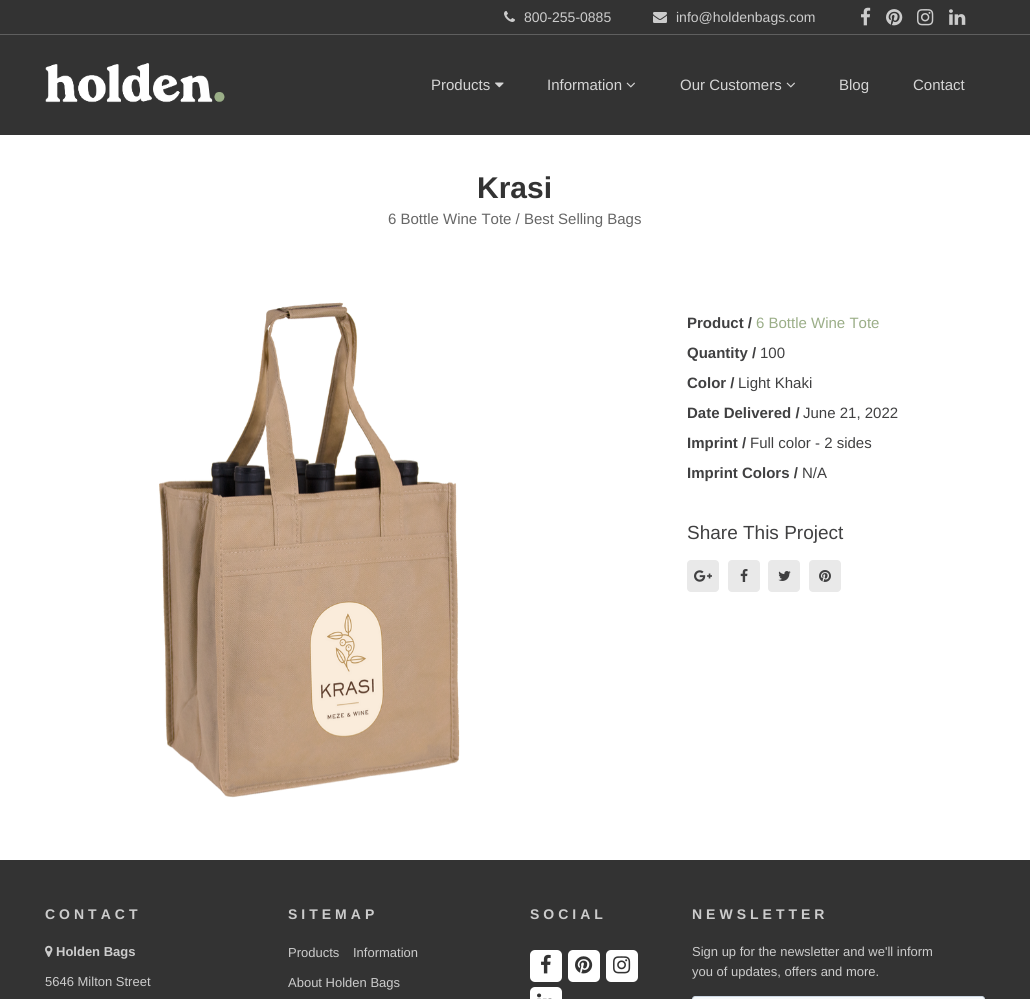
#include <cairo.h>
#include <math.h>
#include <stddef.h>

static cairo_t *c;
static void C(unsigned color){cairo_set_source_rgb(c, (color >> 16) / 255.0, (color >> 8 & 255) / 255.0, (color & 255) / 255.0);}
static void F(const char *family, double size, int italic, int bold){cairo_select_font_face(c, family, italic ? CAIRO_FONT_SLANT_ITALIC : CAIRO_FONT_SLANT_NORMAL,bold ? CAIRO_FONT_WEIGHT_BOLD : CAIRO_FONT_WEIGHT_NORMAL);cairo_set_font_size(c, size);}
static void T(double x, double y, const char *s){cairo_move_to(c, x, y);cairo_show_text(c, s);}
static void L(double x, double y, const char *s, double letter, double word){cairo_move_to(c, x, y);while (*s) {char ch[5] = {0};int n = 0;do ch[n++] = *s++; while ((*s & 0xC0) == 0x80);cairo_show_text(c, ch);cairo_rel_move_to(c, letter + word * (*ch == ' '), 0);}}
static void R(double x, double y, double w, double h){cairo_rectangle(c, x, y, w, h);cairo_fill(c);}
static void Q(double x, double y, double w, double h, double r){cairo_new_sub_path(c);cairo_arc(c, x + w - r, y + h - r, r, 0, M_PI / 2);cairo_arc(c, x + r, y + h - r, r, M_PI / 2, M_PI);cairo_arc(c, x + r, y + r, r, M_PI, 1.5 * M_PI);cairo_arc(c, x + w - r, y + r, r, 1.5 * M_PI, 2 * M_PI);cairo_close_path(c);}
static void I(const char *path, double x, double y, double w, double h){cairo_surface_t *image = cairo_image_surface_create_from_png(path);cairo_save(c);cairo_set_source_surface(c, image, x, y);cairo_rectangle(c, x, y, w, h);cairo_fill(c);cairo_restore(c);cairo_surface_destroy(image);}
int main(void) {
cairo_surface_t *surface = cairo_image_surface_create(CAIRO_FORMAT_RGB24, 1030, 999);
c = cairo_create(surface);
cairo_font_options_t *options = cairo_font_options_create();
cairo_font_options_set_hint_metrics(options, CAIRO_HINT_METRICS_OFF);
cairo_font_options_set_hint_style(options, CAIRO_HINT_STYLE_NONE);
cairo_set_font_options(c, options);
cairo_set_miter_limit(c, 4);
C(0xffffff);
cairo_paint(c);
C(0x333333);
R(0,0,1030,34);
C(0x5f5f5f);
R(0,34,1030,1);
I("1.png",504,11,11,11);
F("Liberation Sans",14,0,0);
C(0xcccccc);
T(524,22,"800-255-0885");
I("2.png",653,12,14,11);
T(676,22,"info@holdenbags.com");
I("3.png",861,7,10,19);
I("4.png",886,9,17,17);
I("5.png",917,9,17,17);
I("6.png",949,9,17,16);
C(0x333333);
R(0,35,1030,100);
I("7.png",45,63,180,40);
F("Liberation Sans",15,0,0);
C(0xd5d5d5);
T(431,90,"Products");
I("8.png",495,82,9,6);
T(547,90,"Information");
I("9.png",626,82,9,6);
T(680,90,"Our Customers");
I("9.png",786,82,9,6);
T(839,90,"Blog");
T(913,90,"Contact");
F("Liberation Sans",30,0,1);
C(0x333333);
T(477,198,"Krasi");
F("Liberation Sans",15,0,0);
C(0x666666);
T(388,224,"6 Bottle Wine Tote / Best Selling Bags");
I("10.png",159,302,301,496);
F("Liberation Sans",15,0,1);
C(0x404041);
T(687,328,"Product /");
F("Liberation Sans",15,0,0);
C(0x9bae88);
T(756,328,"6 Bottle Wine Tote");
F("Liberation Sans",15,0,1);
C(0x404041);
T(687,358,"Quantity /");
F("Liberation Sans",15,0,0);
T(760,358,"100");
F("Liberation Sans",15,0,1);
T(687,388,"Color /");
F("Liberation Sans",15,0,0);
T(738,388,"Light Khaki");
F("Liberation Sans",15,0,1);
T(687,418,"Date Delivered /");
F("Liberation Sans",15,0,0);
T(803,418,"June 21, 2022");
F("Liberation Sans",15,0,1);
T(687,448,"Imprint /");
F("Liberation Sans",15,0,0);
T(750,448,"Full color - 2 sides");
F("Liberation Sans",15,0,1);
T(687,478,"Imprint Colors /");
F("Liberation Sans",15,0,0);
T(802,478,"N/A");
F("Liberation Sans",19,0,0);
T(687,539,"Share This Project");
C(0xe9e9e9);
Q(687,560,32,32,4);
cairo_fill(c);
I("11.png",694,570,18,12);
Q(728,560,32,32,4);
cairo_fill(c);
I("12.png",740,569,8,13);
Q(768,560,32,32,4);
cairo_fill(c);
I("13.png",778,571,13,10);
Q(809,560,32,32,4);
cairo_fill(c);
I("14.png",819,570,12,12);
C(0x333333);
R(0,860,1030,139);
F("Liberation Sans",14,0,1);
C(0xcccccc);
L(45,919,"CONTACT",4,0);
I("15.png",45,945,8,12);
F("Liberation Sans",13,0,1);
T(56,956,"Holden Bags");
F("Liberation Sans",13,0,0);
T(45,986,"5646 Milton Street");
F("Liberation Sans",14,0,1);
L(288,919,"SITEMAP",4,0);
F("Liberation Sans",13,0,0);
T(288,957,"Products");
T(353,957,"Information");
T(288,987,"About Holden Bags");
F("Liberation Sans",14,0,1);
L(530,919,"SOCIAL",4,0);
C(0xffffff);
Q(530,950,32,32,5);
cairo_fill(c);
I("16.png",541,954,10,20);
Q(568,950,32,32,5);
cairo_fill(c);
I("17.png",575,956,18,18);
Q(606,950,32,32,5);
cairo_fill(c);
I("18.png",613,956,18,18);
Q(530,987,32,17,5);
cairo_fill(c);
I("19.png",537,993,15,6);
C(0xcccccc);
L(692,919,"NEWSLETTER",4,0);
F("Liberation Sans",13,0,0);
T(692,956,"Sign up for the newsletter and we'll inform");
T(692,976,"you of updates, offers and more.");
I("20.png",692,996,293,3);
cairo_surface_write_to_png(surface, "o.png");
cairo_font_options_destroy(options);
cairo_destroy(c);
cairo_surface_destroy(surface);
return 0;
}
